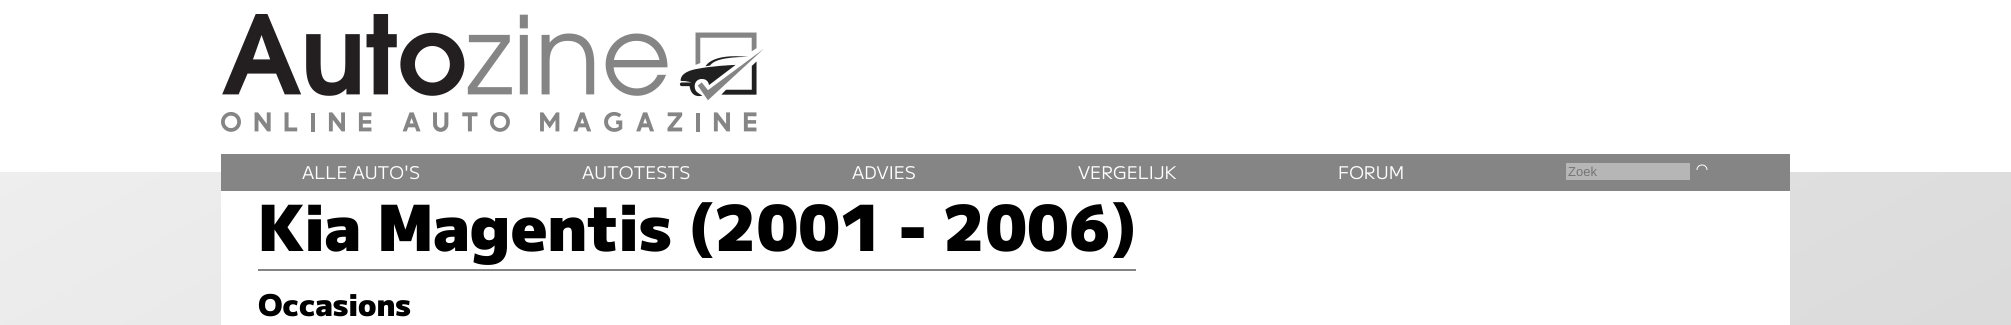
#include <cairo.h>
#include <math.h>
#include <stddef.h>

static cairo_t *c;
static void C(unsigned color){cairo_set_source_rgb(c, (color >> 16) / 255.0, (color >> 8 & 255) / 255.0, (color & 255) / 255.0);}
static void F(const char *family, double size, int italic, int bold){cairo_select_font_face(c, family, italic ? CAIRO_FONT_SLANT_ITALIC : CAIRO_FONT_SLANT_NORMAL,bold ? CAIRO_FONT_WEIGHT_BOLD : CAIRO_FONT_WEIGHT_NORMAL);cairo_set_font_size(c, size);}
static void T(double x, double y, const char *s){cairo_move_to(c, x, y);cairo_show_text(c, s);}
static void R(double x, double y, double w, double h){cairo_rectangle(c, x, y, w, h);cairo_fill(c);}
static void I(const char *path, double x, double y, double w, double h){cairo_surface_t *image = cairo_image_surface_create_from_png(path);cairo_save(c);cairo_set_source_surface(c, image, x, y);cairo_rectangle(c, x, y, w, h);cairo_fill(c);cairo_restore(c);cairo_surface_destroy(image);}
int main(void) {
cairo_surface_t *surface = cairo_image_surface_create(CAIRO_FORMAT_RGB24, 2011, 325);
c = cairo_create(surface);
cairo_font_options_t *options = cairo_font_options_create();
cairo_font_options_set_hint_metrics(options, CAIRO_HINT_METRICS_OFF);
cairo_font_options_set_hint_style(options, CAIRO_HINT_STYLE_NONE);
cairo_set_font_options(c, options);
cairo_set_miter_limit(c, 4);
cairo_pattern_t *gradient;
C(0xffffff);
cairo_paint(c);
I("1.png",221,14,543,118);
gradient = cairo_pattern_create_linear(550,-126,1461,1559);
cairo_pattern_add_color_stop_rgba(gradient,0,0.933,0.933,0.933,1);
cairo_pattern_add_color_stop_rgba(gradient,1,0.8,0.8,0.8,1);
cairo_set_source(c,gradient);
cairo_pattern_destroy(gradient);
R(0,172,2011,153);
C(0x858585);
R(221,154,1569,37);
F("M PLUS 1",17.5,0,0);
C(0xffffff);
T(302,179,"ALLE AUTO'S");
T(582,179,"AUTOTESTS");
T(852,179,"ADVIES");
T(1078,179,"VERGELIJK");
T(1338,179,"FORUM");
C(0xb6b6b6);
R(1566,163,124,17);
F("Liberation Sans",13,0,0);
C(0x757575);
T(1568,176,"Zoek");
cairo_save(c);
cairo_rectangle(c,1695,163,14,7);
cairo_clip(c);
cairo_arc(c,1702,170,5,0,2 * M_PI);
C(0xffffff);
cairo_set_line_width(c,1);
cairo_stroke(c);
cairo_restore(c);
C(0xffffff);
R(221,191,1569,134);
C(0x858585);
R(258,269,878,2);
F("M PLUS 1 Black",63.4,0,0);
C(0x000000);
T(258,251,"Kia Magentis (2001 - 2006)");
F("M PLUS 1 Black",30,0,0);
T(258,316,"Occasions");
cairo_surface_write_to_png(surface, "o.png");
cairo_font_options_destroy(options);
cairo_destroy(c);
cairo_surface_destroy(surface);
return 0;
}
